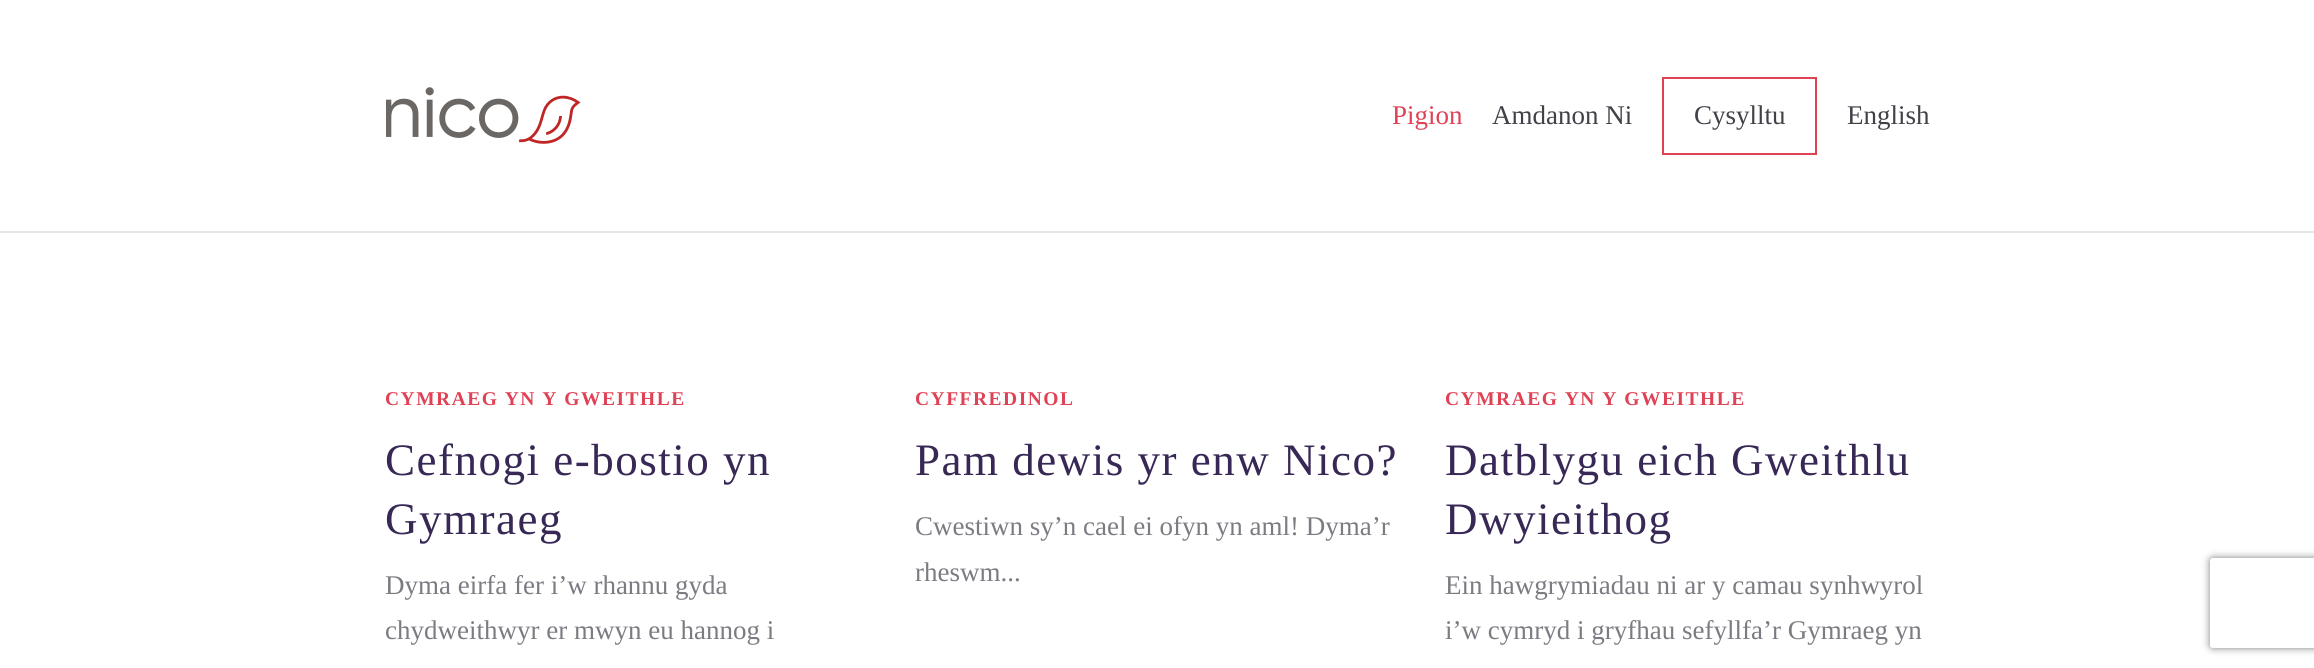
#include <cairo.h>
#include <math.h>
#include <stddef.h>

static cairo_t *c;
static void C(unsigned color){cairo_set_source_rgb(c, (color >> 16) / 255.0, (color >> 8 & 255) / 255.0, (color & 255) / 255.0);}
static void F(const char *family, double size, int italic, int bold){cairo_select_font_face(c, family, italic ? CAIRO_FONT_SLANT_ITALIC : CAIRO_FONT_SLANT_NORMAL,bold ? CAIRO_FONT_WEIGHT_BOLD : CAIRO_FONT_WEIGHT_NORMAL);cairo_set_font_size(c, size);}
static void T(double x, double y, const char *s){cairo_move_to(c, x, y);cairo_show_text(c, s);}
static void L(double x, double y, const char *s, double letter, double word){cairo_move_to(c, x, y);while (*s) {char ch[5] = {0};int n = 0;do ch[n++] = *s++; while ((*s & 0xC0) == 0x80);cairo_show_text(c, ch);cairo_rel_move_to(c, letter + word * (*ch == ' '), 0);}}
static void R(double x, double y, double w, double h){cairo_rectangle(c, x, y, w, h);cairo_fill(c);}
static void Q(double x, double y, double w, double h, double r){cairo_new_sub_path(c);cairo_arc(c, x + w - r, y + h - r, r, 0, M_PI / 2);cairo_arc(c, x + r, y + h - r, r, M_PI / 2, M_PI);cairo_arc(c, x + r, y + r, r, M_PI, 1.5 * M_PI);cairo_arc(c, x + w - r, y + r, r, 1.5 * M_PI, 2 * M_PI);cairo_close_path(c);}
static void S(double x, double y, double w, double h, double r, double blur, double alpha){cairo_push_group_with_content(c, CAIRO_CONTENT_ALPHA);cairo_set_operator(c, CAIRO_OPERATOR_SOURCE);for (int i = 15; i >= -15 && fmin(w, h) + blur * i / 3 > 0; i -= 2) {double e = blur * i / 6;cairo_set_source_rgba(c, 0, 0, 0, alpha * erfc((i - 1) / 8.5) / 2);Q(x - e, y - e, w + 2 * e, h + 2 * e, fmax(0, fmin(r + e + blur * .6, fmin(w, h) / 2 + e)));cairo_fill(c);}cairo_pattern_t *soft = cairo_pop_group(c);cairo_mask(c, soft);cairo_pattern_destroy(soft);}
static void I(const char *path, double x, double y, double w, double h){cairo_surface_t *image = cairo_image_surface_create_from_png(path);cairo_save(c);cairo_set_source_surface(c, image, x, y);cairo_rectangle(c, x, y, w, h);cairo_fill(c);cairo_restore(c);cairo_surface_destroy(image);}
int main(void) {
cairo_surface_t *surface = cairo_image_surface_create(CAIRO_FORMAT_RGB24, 2314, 668);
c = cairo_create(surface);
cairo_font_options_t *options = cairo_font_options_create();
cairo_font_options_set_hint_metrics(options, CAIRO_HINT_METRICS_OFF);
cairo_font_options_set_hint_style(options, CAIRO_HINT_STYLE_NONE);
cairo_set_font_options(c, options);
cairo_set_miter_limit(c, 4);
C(0xffffff);
cairo_paint(c);
C(0xe6e6e6);
R(0,231,2314,2);
I("1.png",386,87,195,57);
F("Liberation Serif",27,0,0);
C(0xe04255);
T(1392,124,"Pigion");
C(0x404248);
T(1492,124,"Amdanon Ni");
cairo_rectangle(c,1663,78,153,76);
C(0xe04255);
cairo_stroke(c);
C(0x404248);
T(1694,124,"Cysylltu");
T(1847,124,"English");
cairo_save(c);
cairo_rectangle(c,386,383,484,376);
cairo_clip(c);
F("Liberation Serif",19.5,0,1);
C(0xe04255);
L(385,405,"CYMRAEG YN Y GWEITHLE",1.5,0);
cairo_restore(c);
F("Liberation Serif",45,0,0);
C(0x382856);
L(385,475,"Cefnogi e-bostio yn",1.5,0);
L(385,534,"Gymraeg",1.5,0);
F("Liberation Serif",27,0,0);
C(0x7e7a82);
T(385,594,"Dyma eirfa fer i’w rhannu gyda");
cairo_save(c);
cairo_rectangle(c,386,383,484,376);
cairo_clip(c);
T(385,639,"chydweithwyr er mwyn eu hannog i");
cairo_restore(c);
F("Liberation Serif",19.5,0,1);
C(0xe04255);
L(915,405,"CYFFREDINOL",1.5,0);
F("Liberation Serif",45,0,0);
C(0x382856);
L(915,475,"Pam dewis yr enw Nico?",1.5,0);
F("Liberation Serif",27,0,0);
C(0x7e7a82);
T(915,535,"Cwestiwn sy’n cael ei ofyn yn aml! Dyma’r");
T(915,581,"rheswm...");
F("Liberation Serif",19.5,0,1);
C(0xe04255);
L(1445,405,"CYMRAEG YN Y GWEITHLE",1.5,0);
F("Liberation Serif",45,0,0);
C(0x382856);
L(1445,475,"Datblygu eich Gweithlu",1.5,0);
L(1445,534,"Dwyieithog",1.5,0);
F("Liberation Serif",27,0,0);
C(0x7e7a82);
T(1445,594,"Ein hawgrymiadau ni ar y camau synhwyrol");
T(1445,639,"i’w cymryd i gryfhau sefyllfa’r Gymraeg yn");
cairo_save(c);
cairo_set_fill_rule(c,CAIRO_FILL_RULE_EVEN_ODD);
cairo_new_path(c);
cairo_move_to(c,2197,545);
cairo_line_to(c,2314,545);
cairo_line_to(c,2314,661);
cairo_line_to(c,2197,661);
cairo_close_path(c);
cairo_move_to(c,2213,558);
cairo_line_to(c,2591,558);
cairo_curve_to(c,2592.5,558,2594,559.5,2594,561);
cairo_line_to(c,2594,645);
cairo_curve_to(c,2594,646.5,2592.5,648,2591,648);
cairo_line_to(c,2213,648);
cairo_curve_to(c,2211.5,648,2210,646.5,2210,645);
cairo_line_to(c,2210,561);
cairo_curve_to(c,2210,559.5,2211.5,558,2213,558);
cairo_close_path(c);
cairo_clip(c);
C(0x808080);
S(2210,558,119,90,3,4,1);
cairo_restore(c);
cairo_surface_write_to_png(surface, "o.png");
cairo_font_options_destroy(options);
cairo_destroy(c);
cairo_surface_destroy(surface);
return 0;
}
